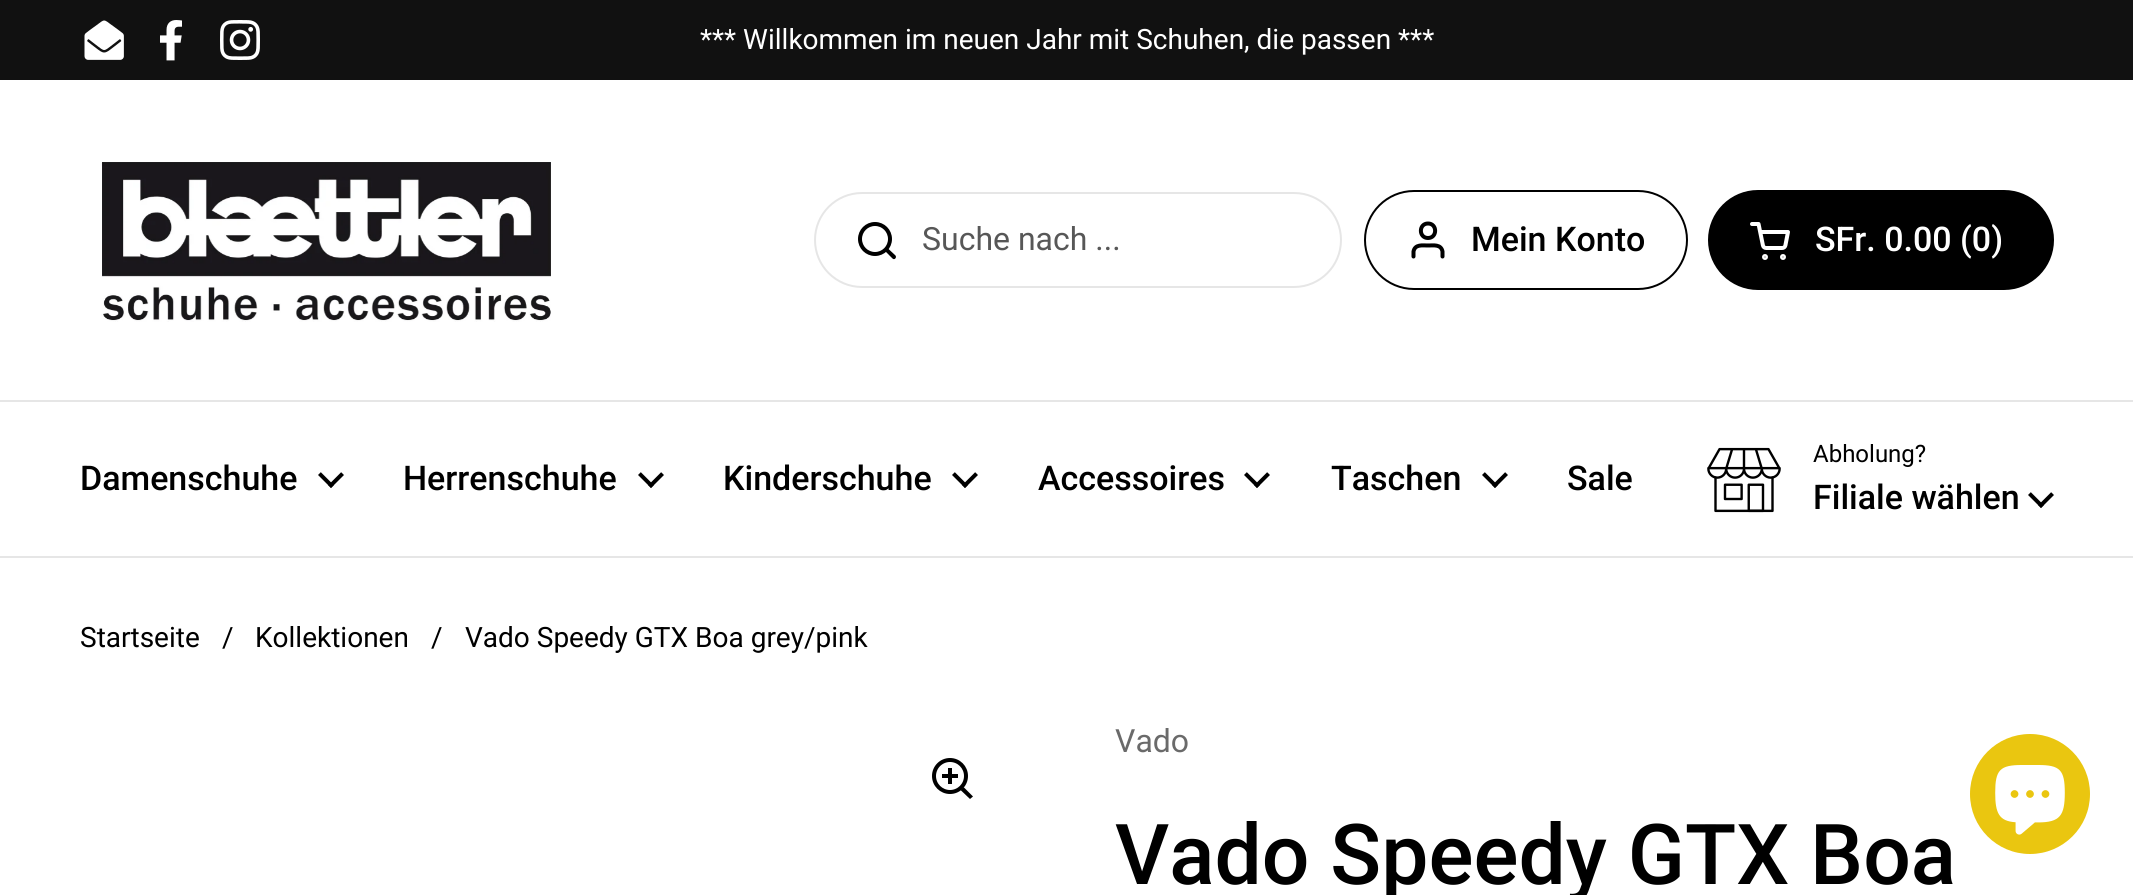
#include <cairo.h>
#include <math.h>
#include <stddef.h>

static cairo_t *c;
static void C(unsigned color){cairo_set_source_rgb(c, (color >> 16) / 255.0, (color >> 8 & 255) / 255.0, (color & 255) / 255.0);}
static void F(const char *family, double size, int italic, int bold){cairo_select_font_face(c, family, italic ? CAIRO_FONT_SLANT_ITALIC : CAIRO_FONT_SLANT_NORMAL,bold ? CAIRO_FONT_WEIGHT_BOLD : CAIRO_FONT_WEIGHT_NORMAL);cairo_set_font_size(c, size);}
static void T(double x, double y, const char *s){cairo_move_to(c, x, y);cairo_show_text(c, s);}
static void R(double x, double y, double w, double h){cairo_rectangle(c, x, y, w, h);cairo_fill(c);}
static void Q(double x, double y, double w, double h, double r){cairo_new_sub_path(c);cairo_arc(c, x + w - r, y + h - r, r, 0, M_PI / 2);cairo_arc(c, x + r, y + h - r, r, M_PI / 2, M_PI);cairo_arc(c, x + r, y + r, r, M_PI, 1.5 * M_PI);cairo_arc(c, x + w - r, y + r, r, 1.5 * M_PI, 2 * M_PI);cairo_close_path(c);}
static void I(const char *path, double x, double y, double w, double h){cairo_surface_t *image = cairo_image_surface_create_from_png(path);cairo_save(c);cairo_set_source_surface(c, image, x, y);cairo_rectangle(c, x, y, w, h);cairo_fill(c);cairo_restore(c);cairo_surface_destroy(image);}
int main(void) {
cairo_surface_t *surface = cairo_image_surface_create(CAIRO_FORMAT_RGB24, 2133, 895);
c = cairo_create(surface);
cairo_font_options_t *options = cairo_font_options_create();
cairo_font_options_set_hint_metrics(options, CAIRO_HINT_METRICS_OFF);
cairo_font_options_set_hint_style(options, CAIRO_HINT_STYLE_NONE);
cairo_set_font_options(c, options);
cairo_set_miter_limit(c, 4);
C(0xffffff);
cairo_paint(c);
C(0x111111);
R(0,0,2133,80);
I("1.png",84,20,40,40);
I("2.png",160,20,22,41);
I("3.png",220,20,40,40);
F("Roboto",28,0,0);
C(0xffffff);
T(700,49,"*** Willkommen im neuen Jahr mit Schuhen, die passen ***");
C(0xe6e6e6);
R(0,400,2133,2);
I("4.png",101,162,450,160);
Q(815,193,526,94,47);
cairo_stroke(c);
cairo_arc(c,875,239,15,0,2 * M_PI);
C(0x000000);
cairo_set_line_width(c,4);
cairo_stroke(c);
cairo_new_path(c);
cairo_move_to(c,888,248.5);
cairo_line_to(c,887,247);
cairo_line_to(c,884,250);
cairo_line_to(c,885.5,251.5);
cairo_close_path(c);
cairo_move_to(c,892.5,258.5);
cairo_curve_to(c,894.5,260.5,897,257.5,895.5,255.5);
cairo_close_path(c);
cairo_move_to(c,885.5,251.5);
cairo_line_to(c,892.5,258.5);
cairo_line_to(c,895.5,255.5);
cairo_line_to(c,888,248.5);
cairo_close_path(c);
cairo_fill(c);
F("Roboto",32,0,0);
C(0x575757);
T(922,250,"Suche nach ...");
Q(1365,191,322,98,49);
C(0x000000);
cairo_set_line_width(c,2);
cairo_stroke(c);
cairo_new_path(c);
cairo_move_to(c,1442.5,256.5);
cairo_line_to(c,1442.5,251.5);
cairo_curve_to(c,1441,244,1433.5,245.5,1428,245.5);
cairo_curve_to(c,1422.5,245.5,1415,244,1413.5,251.5);
cairo_line_to(c,1413.5,256.5);
cairo_move_to(c,1428,238);
cairo_curve_to(c,1437.5,238,1437.5,223.5,1428,223.5);
cairo_curve_to(c,1418.5,223.5,1418.5,238,1428,238);
cairo_close_path(c);
cairo_set_line_width(c,4);
cairo_set_line_cap(c,CAIRO_LINE_CAP_ROUND);
cairo_set_line_join(c,CAIRO_LINE_JOIN_ROUND);
cairo_stroke(c);
F("Roboto Medium",34,0,0);
T(1471,251,"Mein Konto");
Q(1709,191,344,98,49);
cairo_fill_preserve(c);
cairo_set_line_width(c,2);
cairo_set_line_cap(c,CAIRO_LINE_CAP_BUTT);
cairo_set_line_join(c,CAIRO_LINE_JOIN_MITER);
cairo_stroke(c);
I("5.png",1750,222,40,38);
C(0xffffff);
T(1815,251,"SFr. 0.00 (0)");
C(0xe6e6e6);
R(0,556,2133,2);
C(0x000000);
T(80,490,"Damenschuhe");
I("6.png",318,472,26,16);
T(403,490,"Herrenschuhe");
I("6.png",638,472,26,16);
T(723,490,"Kinderschuhe");
I("6.png",952,472,26,16);
T(1038,490,"Accessoires");
I("6.png",1244,472,26,16);
T(1331,490,"Taschen");
I("6.png",1482,472,26,16);
T(1567,490,"Sale");
I("7.png",1707,447,74,66);
F("Roboto",24,0,0);
T(1813,462,"Abholung?");
F("Roboto Medium",34,0,0);
T(1813,509,"Filiale wählen");
I("6.png",2028,492,26,16);
F("Roboto",28,0,0);
T(80,647,"Startseite");
T(222,647,"/");
T(255,647,"Kollektionen");
T(431,647,"/");
T(465,647,"Vado Speedy GTX Boa grey/pink");
cairo_new_path(c);
cairo_arc(c,950,776,16,0,2 * M_PI);
cairo_set_line_width(c,4);
cairo_stroke(c);
R(948,768,4,16);
R(942,774,16,4);
cairo_new_path(c);
cairo_move_to(c,960.5,790);
cairo_line_to(c,963.5,787);
cairo_line_to(c,973,796.5);
cairo_line_to(c,970,799);
cairo_close_path(c);
cairo_fill(c);
F("Roboto",32,0,0);
C(0x6a6a6a);
T(1115,752,"Vado");
F("Roboto Medium",84,0,0);
C(0x000000);
T(1115,884,"Vado Speedy GTX Boa");
C(0xeac610);
cairo_new_path(c);
cairo_arc(c,2030,794,60,0,2 * M_PI);
cairo_fill(c);
I("8.png",1995,765,70,70);
cairo_surface_write_to_png(surface, "o.png");
cairo_font_options_destroy(options);
cairo_destroy(c);
cairo_surface_destroy(surface);
return 0;
}
